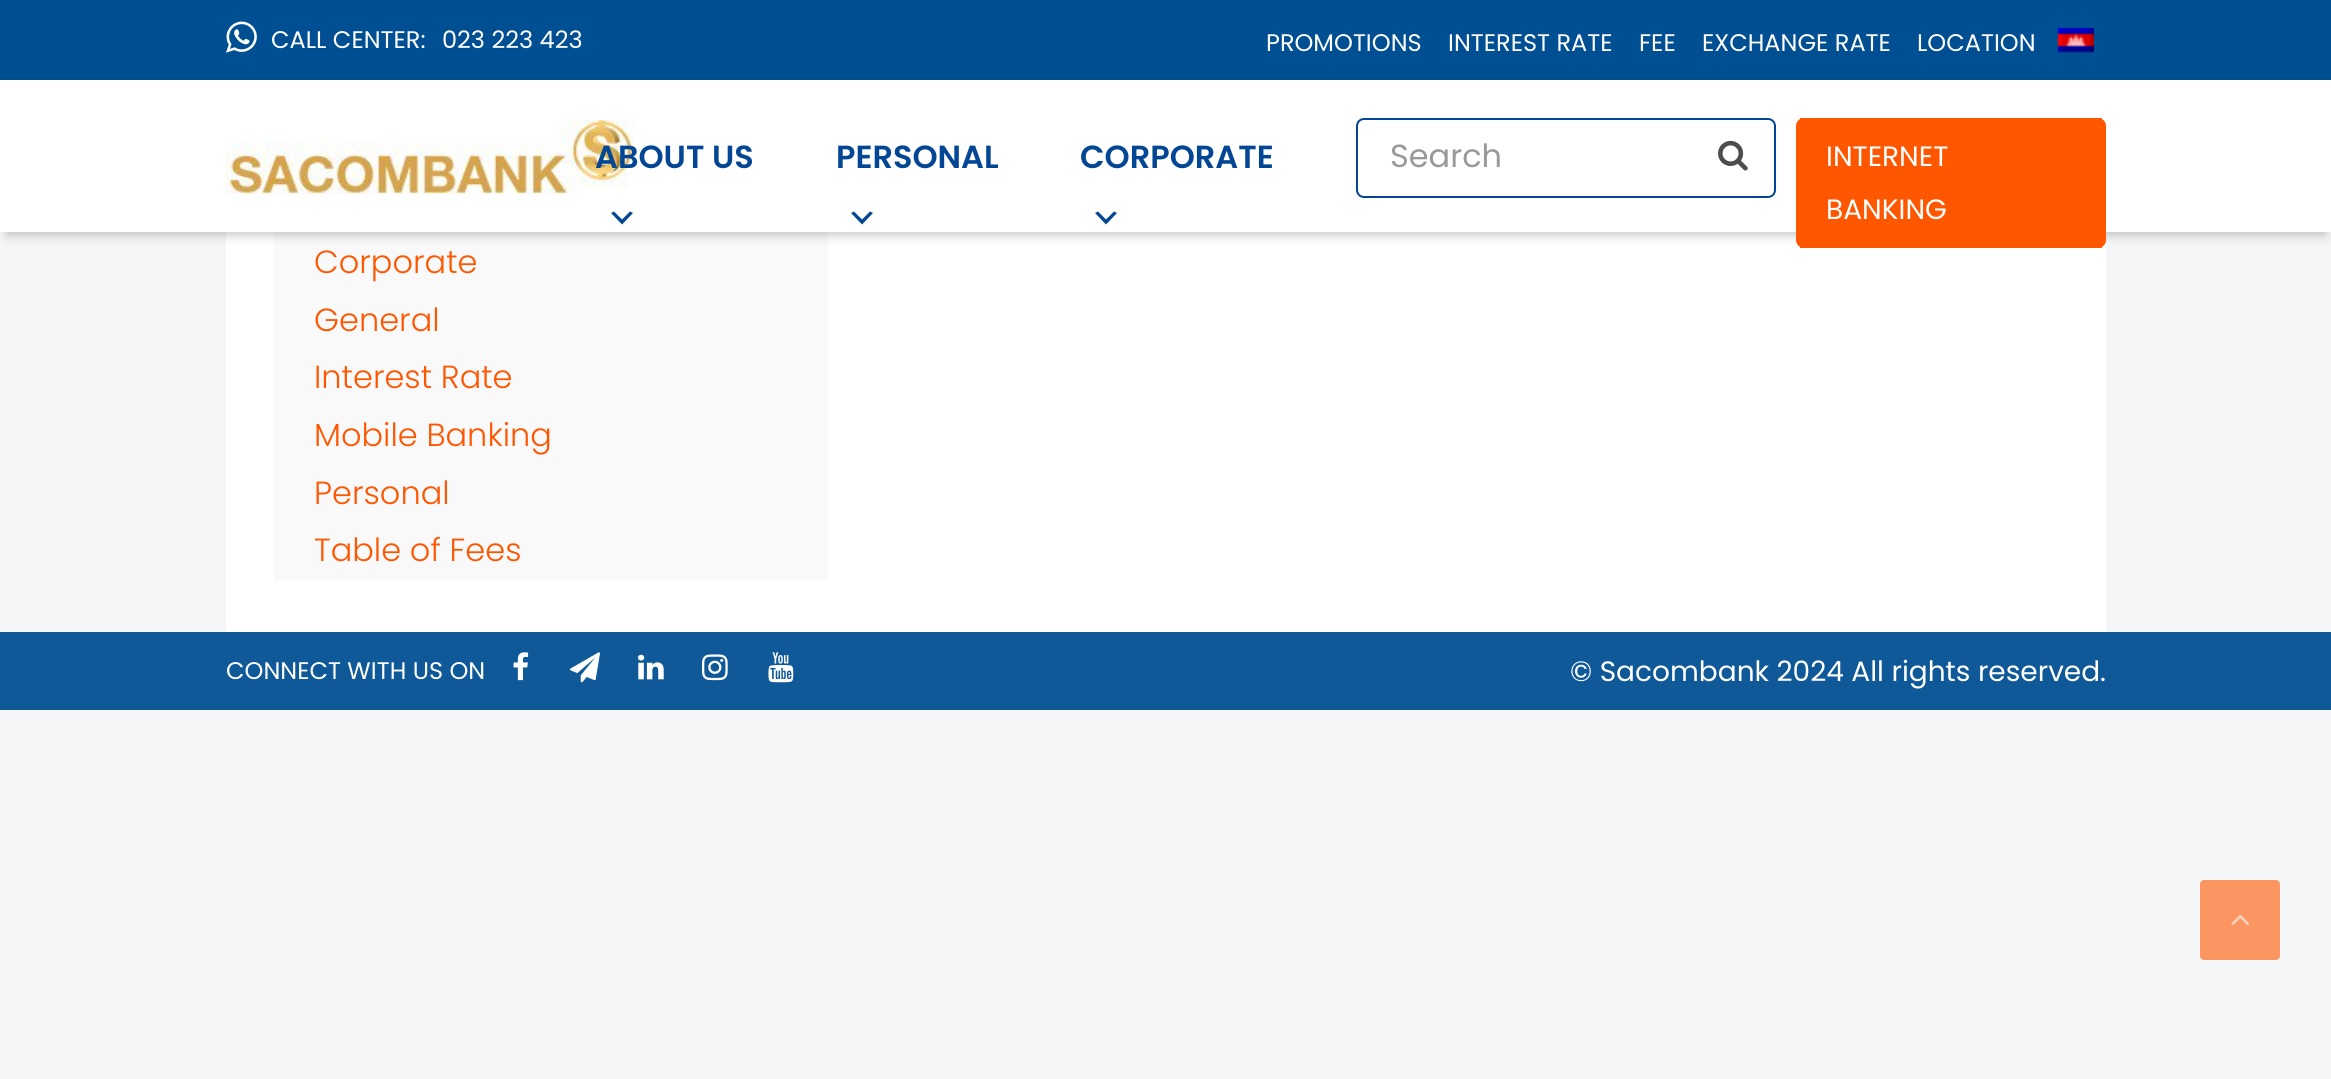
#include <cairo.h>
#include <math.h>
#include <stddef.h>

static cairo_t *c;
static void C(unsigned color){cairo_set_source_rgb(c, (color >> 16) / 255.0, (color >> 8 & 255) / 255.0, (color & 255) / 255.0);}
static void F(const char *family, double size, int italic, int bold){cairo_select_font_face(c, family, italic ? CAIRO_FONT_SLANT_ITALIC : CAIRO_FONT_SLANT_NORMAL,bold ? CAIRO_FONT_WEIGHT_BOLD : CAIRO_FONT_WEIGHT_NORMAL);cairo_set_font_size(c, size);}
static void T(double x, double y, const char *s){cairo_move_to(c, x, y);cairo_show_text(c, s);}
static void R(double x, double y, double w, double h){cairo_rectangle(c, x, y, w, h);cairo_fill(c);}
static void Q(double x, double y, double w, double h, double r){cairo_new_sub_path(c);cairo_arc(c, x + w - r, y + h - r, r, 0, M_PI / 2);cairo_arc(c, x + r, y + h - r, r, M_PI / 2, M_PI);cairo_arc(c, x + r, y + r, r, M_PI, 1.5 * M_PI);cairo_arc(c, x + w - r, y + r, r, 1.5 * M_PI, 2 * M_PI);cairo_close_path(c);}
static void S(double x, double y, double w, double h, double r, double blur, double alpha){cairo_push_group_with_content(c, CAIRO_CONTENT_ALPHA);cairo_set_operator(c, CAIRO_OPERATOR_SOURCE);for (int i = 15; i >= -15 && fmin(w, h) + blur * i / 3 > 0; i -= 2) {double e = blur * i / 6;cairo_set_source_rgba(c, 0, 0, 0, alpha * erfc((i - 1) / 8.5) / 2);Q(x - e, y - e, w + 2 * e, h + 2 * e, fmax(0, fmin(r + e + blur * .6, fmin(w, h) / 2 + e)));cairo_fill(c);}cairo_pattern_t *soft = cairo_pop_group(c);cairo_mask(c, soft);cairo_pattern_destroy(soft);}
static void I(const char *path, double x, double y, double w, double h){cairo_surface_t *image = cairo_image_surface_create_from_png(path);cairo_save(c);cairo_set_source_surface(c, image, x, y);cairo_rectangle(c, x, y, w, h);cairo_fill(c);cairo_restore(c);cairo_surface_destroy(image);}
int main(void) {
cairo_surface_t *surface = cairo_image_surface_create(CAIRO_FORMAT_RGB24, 2331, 1079);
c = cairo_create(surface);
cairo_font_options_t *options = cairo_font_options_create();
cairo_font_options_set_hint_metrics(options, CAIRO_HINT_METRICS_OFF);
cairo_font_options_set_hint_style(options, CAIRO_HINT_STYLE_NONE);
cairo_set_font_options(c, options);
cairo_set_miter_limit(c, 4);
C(0xf4f6f8);
cairo_paint(c);
C(0x004f93);
R(0,0,2331,80);
I("1.png",226,21,31,32);
F("Poppins",24,0,0);
C(0xffffff);
T(271,48,"CALL CENTER:");
T(442,48,"023 223 423");
T(1266,51,"PROMOTIONS");
T(1448,51,"INTEREST RATE");
T(1639,51,"FEE");
T(1702,51,"EXCHANGE RATE");
T(1917,51,"LOCATION");
I("2.png",2057,28,37,25);
R(226,232,1880,400);
C(0xf9f9f9);
R(274,232,554,348);
C(0x000000);
S(6,96,2320,140,0,5,.2);
C(0xffffff);
R(0,80,2331,152);
I("3.png",226,120,410,74);
F("Poppins SemiBold",32,0,0);
C(0x034693);
T(595,168,"ABOUT US");
cairo_new_path(c);
cairo_move_to(c,614,211.5);
cairo_line_to(c,622,219.5);
cairo_line_to(c,630,211.5);
cairo_line_to(c,633,213);
cairo_line_to(c,622,224.5);
cairo_line_to(c,611,213);
cairo_close_path(c);
cairo_fill(c);
T(836,168,"PERSONAL");
cairo_new_path(c);
cairo_move_to(c,854,211.5);
cairo_line_to(c,862,219.5);
cairo_line_to(c,870,211.5);
cairo_line_to(c,873,213);
cairo_line_to(c,862,224.5);
cairo_line_to(c,851,213);
cairo_close_path(c);
cairo_fill(c);
T(1080,168,"CORPORATE");
cairo_new_path(c);
cairo_move_to(c,1098,211.5);
cairo_line_to(c,1106,219.5);
cairo_line_to(c,1114,211.5);
cairo_line_to(c,1117,213);
cairo_line_to(c,1106,224.5);
cairo_line_to(c,1095,213);
cairo_close_path(c);
cairo_fill(c);
Q(1357,119,418,78,7);
cairo_stroke(c);
F("Poppins",32,0,0);
C(0x999999);
T(1390,167,"Search");
I("4.png",1718,140,30,31);
C(0xff5600);
Q(1796,118,310,130,8);
cairo_fill(c);
R(1800,118,302,2);
R(1800,246,302,2);
F("Poppins",28,0,0);
C(0xffffff);
T(1826,166,"INTERNET");
T(1826,219,"BANKING");
F("Poppins Light",32,0,0);
C(0xff5600);
T(314,273,"Corporate");
T(314,331,"General");
T(314,388,"Interest Rate");
T(314,446,"Mobile Banking");
T(314,504,"Personal");
T(314,561,"Table of Fees");
C(0x0f5999);
R(0,632,2331,78);
F("Poppins",24,0,0);
C(0xffffff);
T(226,679,"CONNECT WITH US ON");
I("5.png",513,652,16,29);
I("6.png",570,652,30,31);
I("7.png",638,654,26,26);
I("8.png",702,654,26,27);
I("9.png",768,652,26,31);
F("Poppins",28,0,0);
T(1570,681,"© Sacombank 2024 All rights reserved.");
C(0xfb9663);
Q(2200,880,80,80,4);
cairo_fill(c);
I("10.png",2231,914,19,12);
cairo_surface_write_to_png(surface, "o.png");
cairo_font_options_destroy(options);
cairo_destroy(c);
cairo_surface_destroy(surface);
return 0;
}
